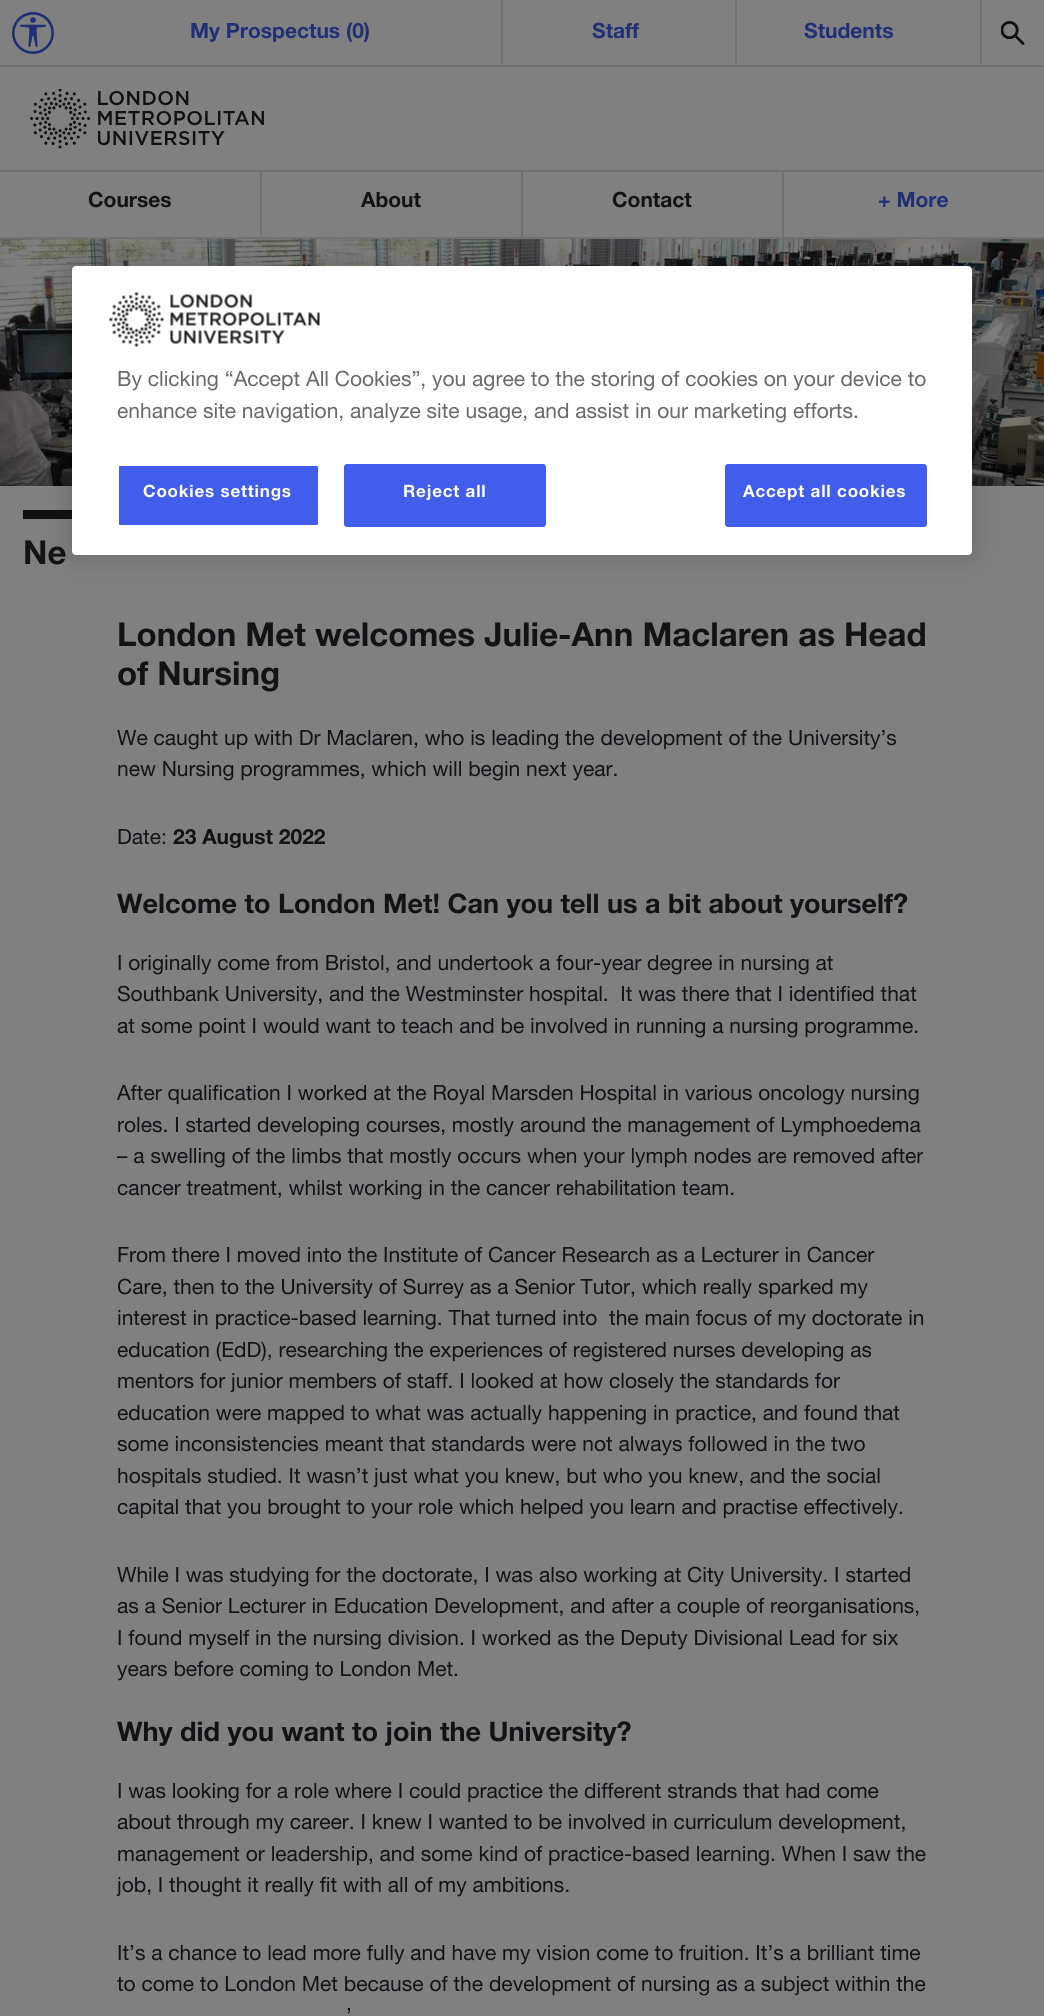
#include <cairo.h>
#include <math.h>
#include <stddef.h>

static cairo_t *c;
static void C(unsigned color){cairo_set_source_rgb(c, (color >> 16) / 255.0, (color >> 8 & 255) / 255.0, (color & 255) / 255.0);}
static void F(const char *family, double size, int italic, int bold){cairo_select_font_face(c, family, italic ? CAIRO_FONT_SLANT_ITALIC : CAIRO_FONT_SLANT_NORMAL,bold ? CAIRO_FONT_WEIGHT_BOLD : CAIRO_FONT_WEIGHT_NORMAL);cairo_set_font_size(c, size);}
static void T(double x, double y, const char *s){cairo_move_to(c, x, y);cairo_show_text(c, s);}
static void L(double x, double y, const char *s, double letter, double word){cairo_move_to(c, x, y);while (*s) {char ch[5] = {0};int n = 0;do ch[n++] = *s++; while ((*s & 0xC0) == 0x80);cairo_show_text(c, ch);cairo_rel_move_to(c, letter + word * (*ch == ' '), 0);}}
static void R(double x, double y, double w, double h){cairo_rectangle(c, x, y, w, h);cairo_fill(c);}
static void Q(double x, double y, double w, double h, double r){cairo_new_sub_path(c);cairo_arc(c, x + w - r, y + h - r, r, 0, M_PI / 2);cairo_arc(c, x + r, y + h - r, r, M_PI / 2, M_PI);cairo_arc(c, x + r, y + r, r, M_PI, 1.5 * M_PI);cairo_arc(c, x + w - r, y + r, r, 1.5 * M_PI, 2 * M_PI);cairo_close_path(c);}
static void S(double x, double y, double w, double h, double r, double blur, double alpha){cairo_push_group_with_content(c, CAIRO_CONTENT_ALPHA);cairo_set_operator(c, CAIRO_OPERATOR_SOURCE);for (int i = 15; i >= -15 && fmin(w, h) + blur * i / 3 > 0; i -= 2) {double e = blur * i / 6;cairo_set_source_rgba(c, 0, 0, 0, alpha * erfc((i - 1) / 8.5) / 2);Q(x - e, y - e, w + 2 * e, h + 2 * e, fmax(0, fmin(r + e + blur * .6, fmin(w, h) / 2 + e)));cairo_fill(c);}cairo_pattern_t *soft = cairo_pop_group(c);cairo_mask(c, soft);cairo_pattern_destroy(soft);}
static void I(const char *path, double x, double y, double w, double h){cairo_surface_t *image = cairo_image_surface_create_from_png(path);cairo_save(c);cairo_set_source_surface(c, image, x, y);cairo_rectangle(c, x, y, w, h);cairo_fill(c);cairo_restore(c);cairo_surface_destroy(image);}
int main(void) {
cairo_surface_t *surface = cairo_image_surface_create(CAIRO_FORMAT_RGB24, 1044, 2016);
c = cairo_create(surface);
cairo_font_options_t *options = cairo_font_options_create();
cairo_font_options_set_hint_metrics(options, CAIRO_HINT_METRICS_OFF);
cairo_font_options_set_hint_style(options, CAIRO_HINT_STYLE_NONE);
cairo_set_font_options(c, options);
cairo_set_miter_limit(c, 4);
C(0x808080);
cairo_paint(c);
C(0x727171);
R(0,65,1044,2);
I("1.png",12,12,42,42);
F("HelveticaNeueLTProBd",21,0,1);
C(0x212f76);
T(190,38,"My Prospectus (0)");
C(0x727171);
R(501,0,2,66);
C(0x212f76);
T(592,38,"Staff");
C(0x727171);
R(735,0,2,66);
C(0x212f76);
T(804,38,"Students");
I("2.png",1001,21,24,24);
C(0x727171);
R(980,0,2,66);
R(0,237,1044,2);
R(0,170,1044,2);
I("3.png",30,89,234,60);
R(260,171,2,66);
C(0x111315);
T(88,207,"Courses");
C(0x727171);
R(521,171,2,66);
C(0x111315);
T(361,207,"About");
C(0x727171);
R(782,171,2,66);
C(0x111315);
T(612,207,"Contact");
C(0x212f76);
T(878,207,"+ More");
I("5.png",0,239,1044,247);
C(0x121010);
R(23,510,49,9);
C(0x000000);
S(72,266,900,289,4,13.5,.2);
C(0xffffff);
Q(72,266,900,289,4);
cairo_fill(c);
I("4.png",109,291,211,56);
F("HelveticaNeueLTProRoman",21,0,0);
C(0x696969);
T(117,386,"By clicking “Accept All Cookies”, you agree to the storing of cookies on your device to");
T(117,418,"enhance site navigation, analyze site usage, and assist in our marketing efforts.");
C(0x415dec);
Q(118,465,201,61,2);
cairo_fill_preserve(c);
C(0xffffff);
cairo_stroke(c);
F("HelveticaNeueLTProBd",17,0,1);
L(143,497,"Cookies settings",.8,0);
C(0x415dec);
Q(345,465,200,61,2);
cairo_fill_preserve(c);
cairo_stroke(c);
C(0xffffff);
L(403,497,"Reject all",.8,0);
C(0x415dec);
Q(726,465,200,61,2);
cairo_fill_preserve(c);
cairo_stroke(c);
C(0xffffff);
L(743,497,"Accept all cookies",.8,0);
F("HelveticaNeueLTProBd",33,0,1);
C(0x111315);
T(23,564,"Ne");
T(117,646,"London Met welcomes Julie-Ann Maclaren as Head");
T(117,685,"of Nursing");
F("HelveticaNeueLTProRoman",21,0,0);
T(117,745,"We caught up with Dr Maclaren, who is leading the development of the University’s");
T(117,776,"new Nursing programmes, which will begin next year.");
T(117,844,"Date:");
F("HelveticaNeueLTProBd",21,0,1);
T(173,844,"23 August 2022");
F("HelveticaNeueLTProBd",27,0,1);
T(117,913,"Welcome to London Met! Can you tell us a bit about yourself?");
F("HelveticaNeueLTProRoman",21,0,0);
T(117,970,"I originally come from Bristol, and undertook a four-year degree in nursing at");
T(117,1001,"Southbank University, and the Westminster hospital.  It was there that I identified that");
T(117,1033,"at some point I would want to teach and be involved in running a nursing programme.");
T(117,1100,"After qualification I worked at the Royal Marsden Hospital in various oncology nursing");
T(117,1132,"roles. I started developing courses, mostly around the management of Lymphoedema");
T(117,1163,"– a swelling of the limbs that mostly occurs when your lymph nodes are removed after");
T(117,1195,"cancer treatment, whilst working in the cancer rehabilitation team.");
T(117,1262,"From there I moved into the Institute of Cancer Research as a Lecturer in Cancer");
T(117,1294,"Care, then to the University of Surrey as a Senior Tutor, which really sparked my");
T(117,1325,"interest in practice-based learning. That turned into  the main focus of my doctorate in");
T(117,1357,"education (EdD), researching the experiences of registered nurses developing as");
T(117,1388,"mentors for junior members of staff. I looked at how closely the standards for");
T(117,1420,"education were mapped to what was actually happening in practice, and found that");
T(117,1451,"some inconsistencies meant that standards were not always followed in the two");
T(117,1483,"hospitals studied. It wasn’t just what you knew, but who you knew, and the social");
T(117,1514,"capital that you brought to your role which helped you learn and practise effectively.");
T(117,1582,"While I was studying for the doctorate, I was also working at City University. I started");
T(117,1613,"as a Senior Lecturer in Education Development, and after a couple of reorganisations,");
T(117,1645,"I found myself in the nursing division. I worked as the Deputy Divisional Lead for six");
T(117,1676,"years before coming to London Met.");
F("HelveticaNeueLTProBd",27,0,1);
T(117,1741,"Why did you want to join the University?");
F("HelveticaNeueLTProRoman",21,0,0);
T(117,1798,"I was looking for a role where I could practice the different strands that had come");
T(117,1829,"about through my career. I knew I wanted to be involved in curriculum development,");
T(117,1861,"management or leadership, and some kind of practice-based learning. When I saw the");
T(117,1892,"job, I thought it really fit with all of my ambitions.");
T(117,1960,"It’s a chance to lead more fully and have my vision come to fruition. It’s a brilliant time");
T(117,1991,"to come to London Met because of the development of nursing as a subject within the");
T(346,2023,"’");
cairo_surface_write_to_png(surface, "o.png");
cairo_font_options_destroy(options);
cairo_destroy(c);
cairo_surface_destroy(surface);
return 0;
}
